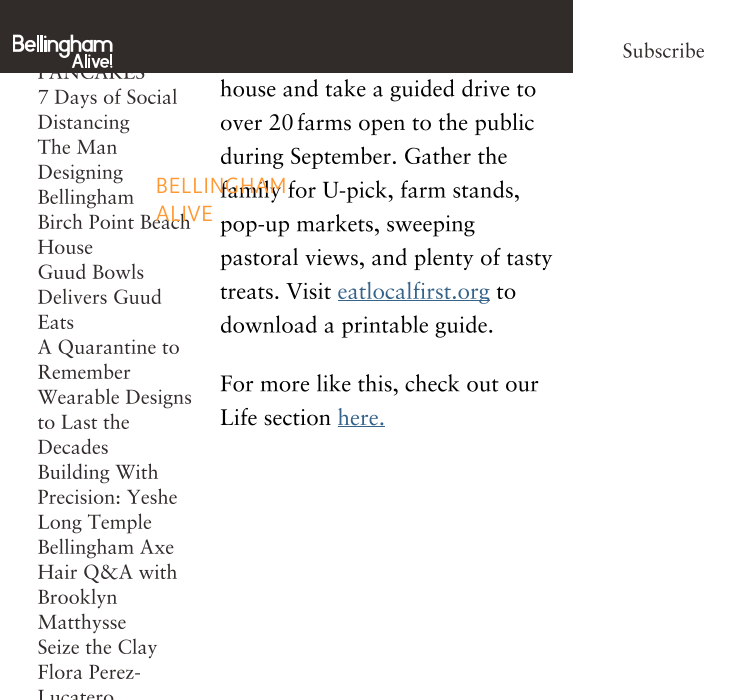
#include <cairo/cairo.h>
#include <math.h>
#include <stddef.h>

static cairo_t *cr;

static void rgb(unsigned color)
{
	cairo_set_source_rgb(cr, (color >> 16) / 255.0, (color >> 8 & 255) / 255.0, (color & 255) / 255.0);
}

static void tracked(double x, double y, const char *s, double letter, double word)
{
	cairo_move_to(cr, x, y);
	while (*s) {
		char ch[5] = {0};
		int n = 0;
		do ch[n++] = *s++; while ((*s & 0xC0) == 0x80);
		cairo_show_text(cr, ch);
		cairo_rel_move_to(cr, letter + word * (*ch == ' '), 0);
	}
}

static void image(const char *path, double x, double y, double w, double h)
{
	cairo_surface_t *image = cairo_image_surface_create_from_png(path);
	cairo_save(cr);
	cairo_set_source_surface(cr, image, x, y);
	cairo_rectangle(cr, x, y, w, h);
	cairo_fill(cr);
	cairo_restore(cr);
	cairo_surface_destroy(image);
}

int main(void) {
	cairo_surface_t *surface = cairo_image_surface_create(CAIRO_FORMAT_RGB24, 755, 700);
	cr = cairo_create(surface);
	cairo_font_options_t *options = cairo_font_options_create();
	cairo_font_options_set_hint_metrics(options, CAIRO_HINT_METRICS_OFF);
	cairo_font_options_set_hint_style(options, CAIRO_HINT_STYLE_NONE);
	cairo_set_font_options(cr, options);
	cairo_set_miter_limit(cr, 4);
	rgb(0xffffff);
	cairo_paint(cr);
	image("img/1.png", 38, 73, 107, 7);
	image("img/2.png", 38, 88, 139, 21);
	image("img/3.png", 38, 114, 92, 20);
	image("img/4.png", 37, 138, 80, 16);
	image("img/5.png", 38, 164, 85, 20);
	image("img/6.png", 38, 188, 96, 21);
	image("img/7.png", 38, 213, 153, 17);
	image("img/8.png", 38, 239, 55, 16);
	image("img/9.png", 38, 263, 106, 17);
	image("img/10.png", 38, 288, 124, 17);
	image("img/11.png", 38, 314, 36, 15);
	image("img/12.png", 37, 339, 142, 20);
	image("img/13.png", 38, 363, 93, 17);
	image("img/14.png", 37, 388, 155, 21);
	image("img/15.png", 37, 413, 92, 17);
	image("img/16.png", 38, 438, 70, 17);
	image("img/17.png", 38, 463, 121, 21);
	image("img/18.png", 38, 488, 139, 17);
	image("img/19.png", 38, 513, 114, 21);
	image("img/20.png", 38, 538, 136, 21);
	image("img/21.png", 38, 563, 139, 21);
	image("img/22.png", 38, 588, 79, 21);
	image("img/23.png", 38, 613, 88, 21);
	image("img/24.png", 38, 638, 120, 21);
	image("img/25.png", 38, 663, 102, 17);
	image("img/26.png", 38, 689, 76, 11);
	image("img/27.png", 220, 79, 316, 23);
	image("img/28.png", 221, 112, 313, 24);
	image("img/29.png", 221, 146, 286, 23);
	image("img/30.png", 220, 180, 299, 23);
	image("img/31.png", 220, 214, 255, 23);
	image("img/32.png", 220, 247, 333, 24);
	image("img/33.png", 220, 286, 59, 14);
	image("img/34.png", 286, 282, 45, 18);
	rgb(0x35638a);
	cairo_rectangle(cr, 338, 300, 152, 1);
	cairo_fill(cr);
	image("img/35.png", 338, 281, 152, 23);
	image("img/36.png", 496, 286, 20, 14);
	image("img/37.png", 221, 315, 272, 23);
	image("img/38.png", 220, 374, 319, 22);
	image("img/39.png", 220, 407, 111, 19);
	image("img/40.png", 338, 407, 46, 19);
	cairo_rectangle(cr, 338, 426, 47, 1);
	cairo_fill(cr);
	rgb(0x312b29);
	cairo_rectangle(cr, 0, 0, 573, 73);
	cairo_fill(cr);
	image("img/41.png", 13, 34, 100, 34);
	image("img/42.png", 623, 42, 81, 16);
	cairo_select_font_face(cr, "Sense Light", CAIRO_FONT_SLANT_NORMAL, CAIRO_FONT_WEIGHT_NORMAL);
	cairo_set_font_size(cr, 22.5);
	rgb(0xff9933);
	tracked(156, 193, "BELLINGHAM", 1.25, 0);
	tracked(156, 221, "ALIVE", 1.25, 0);
	cairo_surface_write_to_png(surface, "page.png");
	cairo_font_options_destroy(options);
	cairo_destroy(cr);
	cairo_surface_destroy(surface);
	return 0;
}
